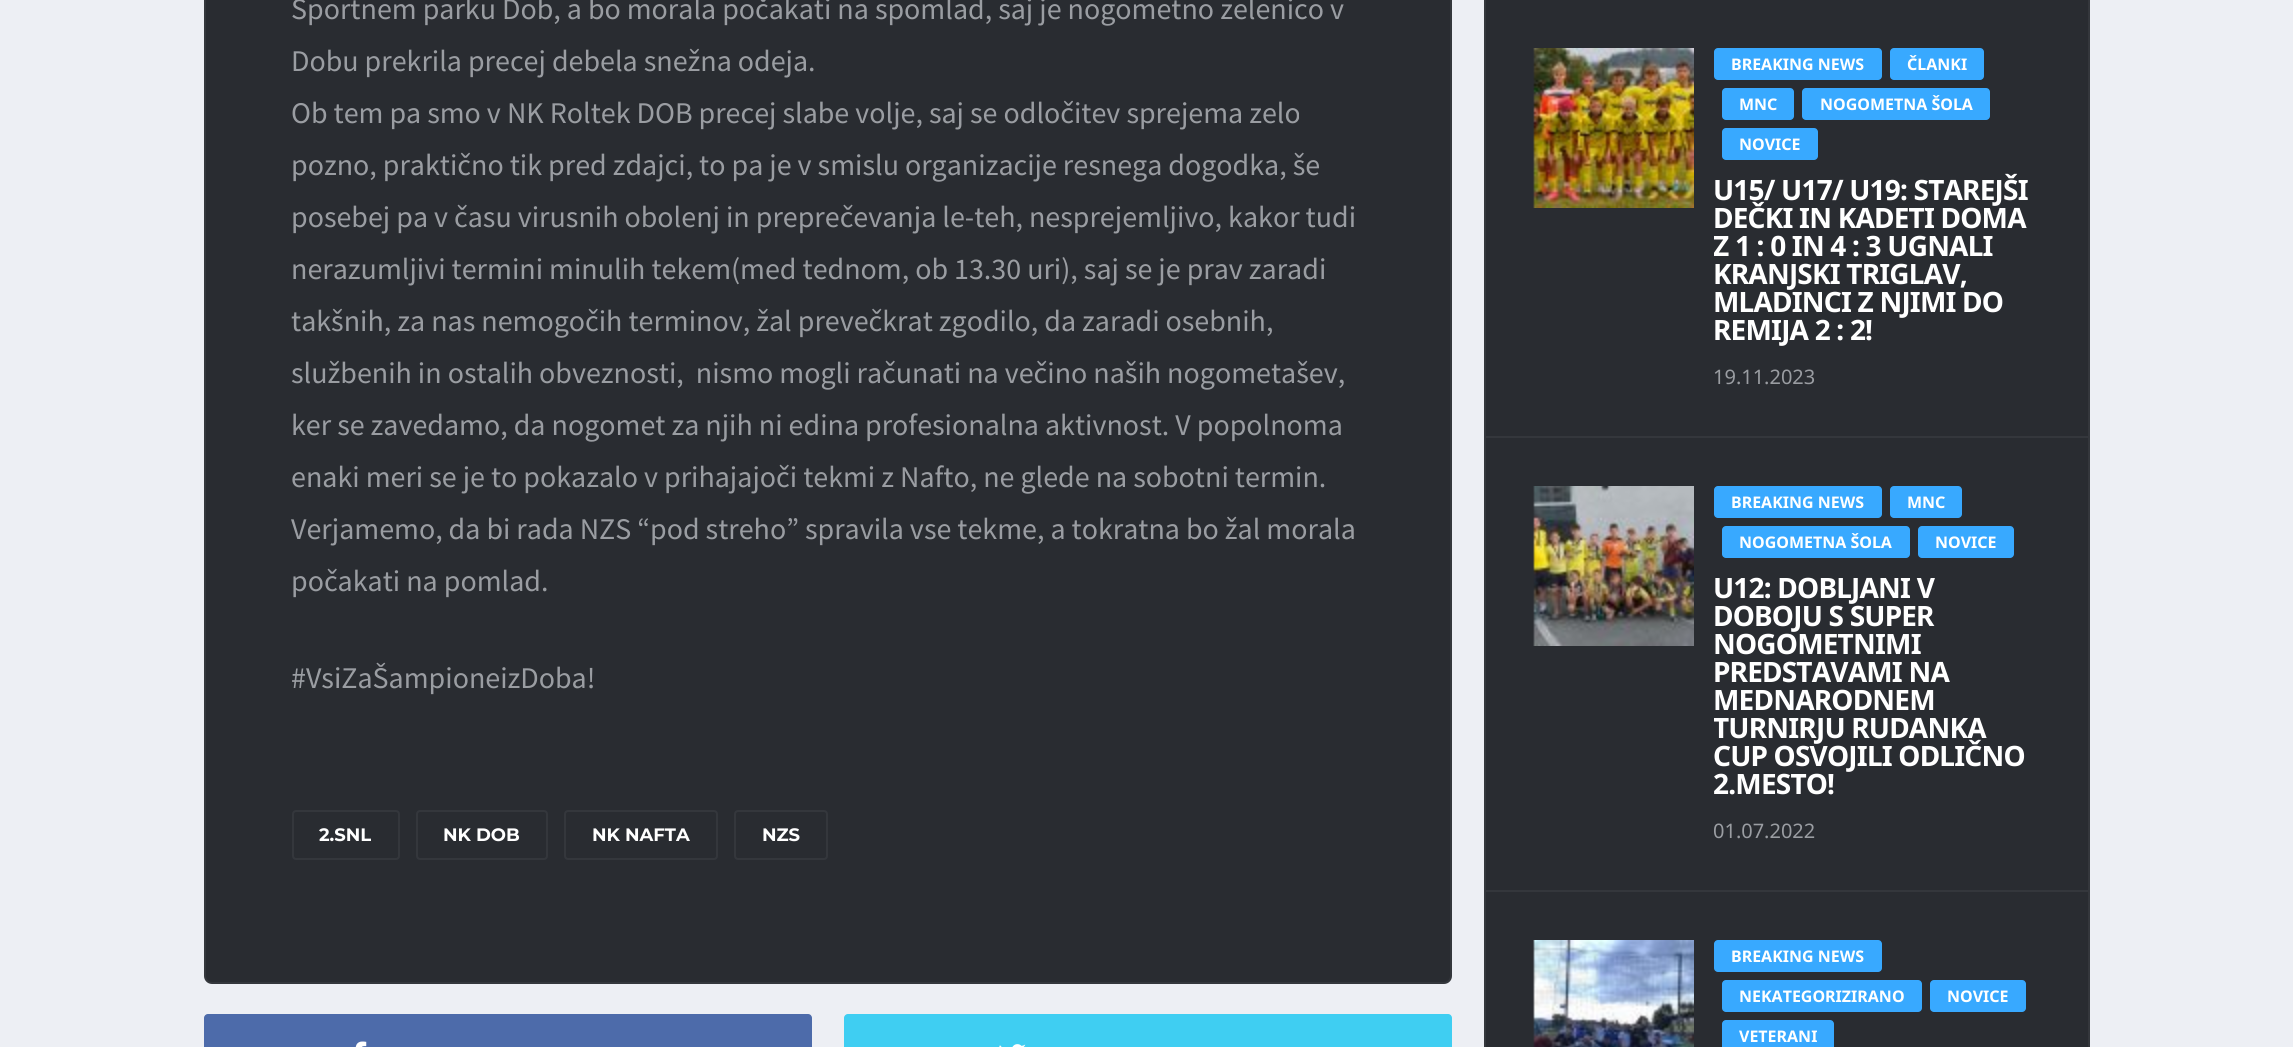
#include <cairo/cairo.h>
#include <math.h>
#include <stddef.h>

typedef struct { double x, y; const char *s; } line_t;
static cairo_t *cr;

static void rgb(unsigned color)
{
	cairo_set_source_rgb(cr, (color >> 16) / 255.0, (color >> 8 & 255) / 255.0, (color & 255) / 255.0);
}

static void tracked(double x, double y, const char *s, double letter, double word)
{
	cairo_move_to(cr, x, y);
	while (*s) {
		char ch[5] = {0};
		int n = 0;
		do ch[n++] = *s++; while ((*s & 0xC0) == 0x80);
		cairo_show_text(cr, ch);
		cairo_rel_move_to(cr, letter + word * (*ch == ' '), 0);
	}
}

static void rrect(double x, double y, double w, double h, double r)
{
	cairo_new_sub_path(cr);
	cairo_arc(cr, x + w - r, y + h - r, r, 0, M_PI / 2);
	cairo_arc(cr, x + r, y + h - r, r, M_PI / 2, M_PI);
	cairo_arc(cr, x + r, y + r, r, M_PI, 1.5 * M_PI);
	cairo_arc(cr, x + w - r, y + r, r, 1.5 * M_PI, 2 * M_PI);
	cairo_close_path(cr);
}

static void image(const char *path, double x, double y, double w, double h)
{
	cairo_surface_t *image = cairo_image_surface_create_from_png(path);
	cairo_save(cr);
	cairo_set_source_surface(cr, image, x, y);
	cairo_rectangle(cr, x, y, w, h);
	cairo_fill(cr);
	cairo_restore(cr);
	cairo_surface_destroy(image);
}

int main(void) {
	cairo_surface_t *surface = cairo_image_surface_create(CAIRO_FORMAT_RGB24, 2293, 1047);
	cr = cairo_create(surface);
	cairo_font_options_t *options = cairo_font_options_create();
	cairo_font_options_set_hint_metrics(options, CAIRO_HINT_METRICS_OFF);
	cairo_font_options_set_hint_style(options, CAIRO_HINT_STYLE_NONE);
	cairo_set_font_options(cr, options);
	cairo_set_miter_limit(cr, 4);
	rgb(0xedeff4);
	cairo_paint(cr);
	rgb(0x292c31);
	rrect(205, -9, 1246, 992, 7);
	cairo_fill_preserve(cr);
	rgb(0x34373c);
	cairo_stroke(cr);
	rrect(293, 811, 106, 48, 3);
	cairo_stroke(cr);
	rrect(417, 811, 130, 48, 3);
	cairo_stroke(cr);
	rrect(565, 811, 152, 48, 3);
	cairo_stroke(cr);
	rrect(735, 811, 92, 48, 3);
	cairo_stroke(cr);
	rgb(0x4d6baa);
	rrect(204, 1014, 608, 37, 4);
	cairo_fill(cr);
	image("img/1.png", 355, 1041, 12, 6);
	rgb(0x3fcef2);
	rrect(844, 1014, 608, 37, 4);
	cairo_fill(cr);
	image("img/2.png", 999, 1044, 27, 3);
	rgb(0x292c31);
	cairo_rectangle(cr, 1485, -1, 604, 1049);
	cairo_fill_preserve(cr);
	rgb(0x34373c);
	cairo_stroke(cr);
	cairo_rectangle(cr, 1486, 436, 602, 2);
	cairo_fill(cr);
	image("img/3.png", 1533, 48, 161, 160);
	rgb(0x38a9ff);
	rrect(1714, 48, 168, 32, 4);
	cairo_fill(cr);
	rrect(1890, 48, 94, 32, 4);
	cairo_fill(cr);
	rrect(1722, 88, 72, 32, 4);
	cairo_fill(cr);
	rrect(1802, 88, 188, 32, 4);
	cairo_fill(cr);
	rrect(1722, 128, 96, 32, 4);
	cairo_fill(cr);
	rgb(0x34373c);
	cairo_rectangle(cr, 1486, 890, 602, 2);
	cairo_fill(cr);
	image("img/4.png", 1533, 486, 161, 160);
	rgb(0x38a9ff);
	rrect(1714, 486, 168, 32, 4);
	cairo_fill(cr);
	rrect(1890, 486, 72, 32, 4);
	cairo_fill(cr);
	rrect(1722, 526, 188, 32, 4);
	cairo_fill(cr);
	rrect(1918, 526, 96, 32, 4);
	cairo_fill(cr);
	image("img/5.png", 1533, 940, 161, 107);
	rrect(1714, 940, 168, 32, 4);
	cairo_fill(cr);
	rrect(1722, 980, 200, 32, 4);
	cairo_fill(cr);
	rrect(1930, 980, 96, 32, 4);
	cairo_fill(cr);
	rrect(1722, 1020, 112, 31, 4);
	cairo_fill(cr);
	cairo_select_font_face(cr, "Source Sans Pro", CAIRO_FONT_SLANT_NORMAL, CAIRO_FONT_WEIGHT_NORMAL);
	cairo_set_font_size(cr, 30);
	rgb(0x9a9da2);
	{
		static const line_t items[] = {
			{291, 19, "Športnem parku Dob, a bo morala počakati na spomlad, saj je nogometno zelenico v"},
			{291, 71, "Dobu prekrila precej debela snežna odeja."},
			{291, 123, "Ob tem pa smo v NK Roltek DOB precej slabe volje, saj se odločitev sprejema zelo"},
			{291, 175, "pozno, praktično tik pred zdajci, to pa je v smislu organizacije resnega dogodka, še"},
			{291, 227, "posebej pa v času virusnih obolenj in preprečevanja le-teh, nesprejemljivo, kakor tudi"},
			{291, 279, "nerazumljivi termini minulih tekem(med tednom, ob 13.30 uri), saj se je prav zaradi"},
			{291, 331, "takšnih, za nas nemogočih terminov, žal prevečkrat zgodilo, da zaradi osebnih,"},
			{291, 383, "službenih in ostalih obveznosti,  nismo mogli računati na večino naših nogometašev,"},
			{291, 435, "ker se zavedamo, da nogomet za njih ni edina profesionalna aktivnost. V popolnoma"},
			{291, 487, "enaki meri se je to pokazalo v prihajajoči tekmi z Nafto, ne glede na sobotni termin."},
			{291, 539, "Verjamemo, da bi rada NZS “pod streho” spravila vse tekme, a tokratna bo žal morala"},
			{291, 591, "počakati na pomlad."},
			{291, 688, "#VsiZaŠampioneizDoba!"},
		};
		for (size_t i = 0; i < sizeof items / sizeof *items; i++) {
			cairo_move_to(cr, items[i].x, items[i].y);
			cairo_show_text(cr, items[i].s);
		}
	}
	cairo_select_font_face(cr, "Montserrat", CAIRO_FONT_SLANT_NORMAL, CAIRO_FONT_WEIGHT_BOLD);
	cairo_set_font_size(cr, 18);
	rgb(0xffffff);
	{
		static const line_t items[] = {
			{319, 841, "2.SNL"},
			{443, 841, "NK DOB"},
			{592, 841, "NK NAFTA"},
			{762, 841, "NZS"},
		};
		for (size_t i = 0; i < sizeof items / sizeof *items; i++) {
			cairo_move_to(cr, items[i].x, items[i].y);
			cairo_show_text(cr, items[i].s);
		}
	}
	cairo_select_font_face(cr, "Noto Sans", CAIRO_FONT_SLANT_NORMAL, CAIRO_FONT_WEIGHT_BOLD);
	cairo_set_font_size(cr, 16);
	{
		static const line_t items[] = {
			{1731, 70, "BREAKING NEWS"},
			{1907, 70, "ČLANKI"},
			{1739, 110, "MNC"},
			{1820, 110, "NOGOMETNA ŠOLA"},
			{1739, 150, "NOVICE"},
		};
		for (size_t i = 0; i < sizeof items / sizeof *items; i++) {
			cairo_move_to(cr, items[i].x, items[i].y);
			cairo_show_text(cr, items[i].s);
		}
	}
	cairo_set_font_size(cr, 28);
	tracked(1713, 200, "U15/ U17/ U19: STAREJŠI", -0.8, 0);
	tracked(1713, 228, "DEČKI IN KADETI DOMA", -0.8, 0);
	cairo_save(cr);
	cairo_rectangle(cr, 1714, 48, 326, 340);
	cairo_clip(cr);
	tracked(1713, 256, "Z 1 : 0 IN 4 : 3 UGNALI", -0.8, 0);
	cairo_restore(cr);
	{
		static const line_t items[] = {
			{1713, 284, "KRANJSKI TRIGLAV,"},
			{1713, 312, "MLADINCI Z NJIMI DO"},
			{1713, 340, "REMIJA 2 : 2!"},
		};
		for (size_t i = 0; i < sizeof items / sizeof *items; i++) {
			tracked(items[i].x, items[i].y, items[i].s, -0.8, 0);
		}
	}
	cairo_select_font_face(cr, "Noto Sans", CAIRO_FONT_SLANT_NORMAL, CAIRO_FONT_WEIGHT_NORMAL);
	cairo_set_font_size(cr, 20);
	rgb(0x9a9da2);
	cairo_move_to(cr, 1713, 384);
	cairo_show_text(cr, "19.11.2023");
	cairo_select_font_face(cr, "Noto Sans", CAIRO_FONT_SLANT_NORMAL, CAIRO_FONT_WEIGHT_BOLD);
	cairo_set_font_size(cr, 16);
	rgb(0xffffff);
	{
		static const line_t items[] = {
			{1731, 508, "BREAKING NEWS"},
			{1907, 508, "MNC"},
			{1739, 548, "NOGOMETNA ŠOLA"},
			{1935, 548, "NOVICE"},
		};
		for (size_t i = 0; i < sizeof items / sizeof *items; i++) {
			cairo_move_to(cr, items[i].x, items[i].y);
			cairo_show_text(cr, items[i].s);
		}
	}
	cairo_set_font_size(cr, 28);
	{
		static const line_t items[] = {
			{1713, 598, "U12: DOBLJANI V"},
			{1713, 626, "DOBOJU S SUPER"},
			{1713, 654, "NOGOMETNIMI"},
			{1713, 682, "PREDSTAVAMI NA"},
			{1713, 710, "MEDNARODNEM"},
		};
		for (size_t i = 0; i < sizeof items / sizeof *items; i++) {
			tracked(items[i].x, items[i].y, items[i].s, -0.8, 0);
		}
	}
	cairo_save(cr);
	cairo_rectangle(cr, 1714, 486, 326, 356);
	cairo_clip(cr);
	tracked(1713, 738, "TURNIRJU RUDANKA", -0.8, 0);
	cairo_restore(cr);
	tracked(1713, 766, "CUP OSVOJILI ODLIČNO", -0.8, 0);
	tracked(1713, 794, "2.MESTO!", -0.8, 0);
	cairo_select_font_face(cr, "Noto Sans", CAIRO_FONT_SLANT_NORMAL, CAIRO_FONT_WEIGHT_NORMAL);
	cairo_set_font_size(cr, 20);
	rgb(0x9a9da2);
	cairo_move_to(cr, 1713, 838);
	cairo_show_text(cr, "01.07.2022");
	cairo_select_font_face(cr, "Noto Sans", CAIRO_FONT_SLANT_NORMAL, CAIRO_FONT_WEIGHT_BOLD);
	cairo_set_font_size(cr, 16);
	rgb(0xffffff);
	{
		static const line_t items[] = {
			{1731, 962, "BREAKING NEWS"},
			{1739, 1002, "NEKATEGORIZIRANO"},
			{1947, 1002, "NOVICE"},
			{1739, 1042, "VETERANI"},
		};
		for (size_t i = 0; i < sizeof items / sizeof *items; i++) {
			cairo_move_to(cr, items[i].x, items[i].y);
			cairo_show_text(cr, items[i].s);
		}
	}
	cairo_surface_write_to_png(surface, "page.png");
	cairo_font_options_destroy(options);
	cairo_destroy(cr);
	cairo_surface_destroy(surface);
	return 0;
}
